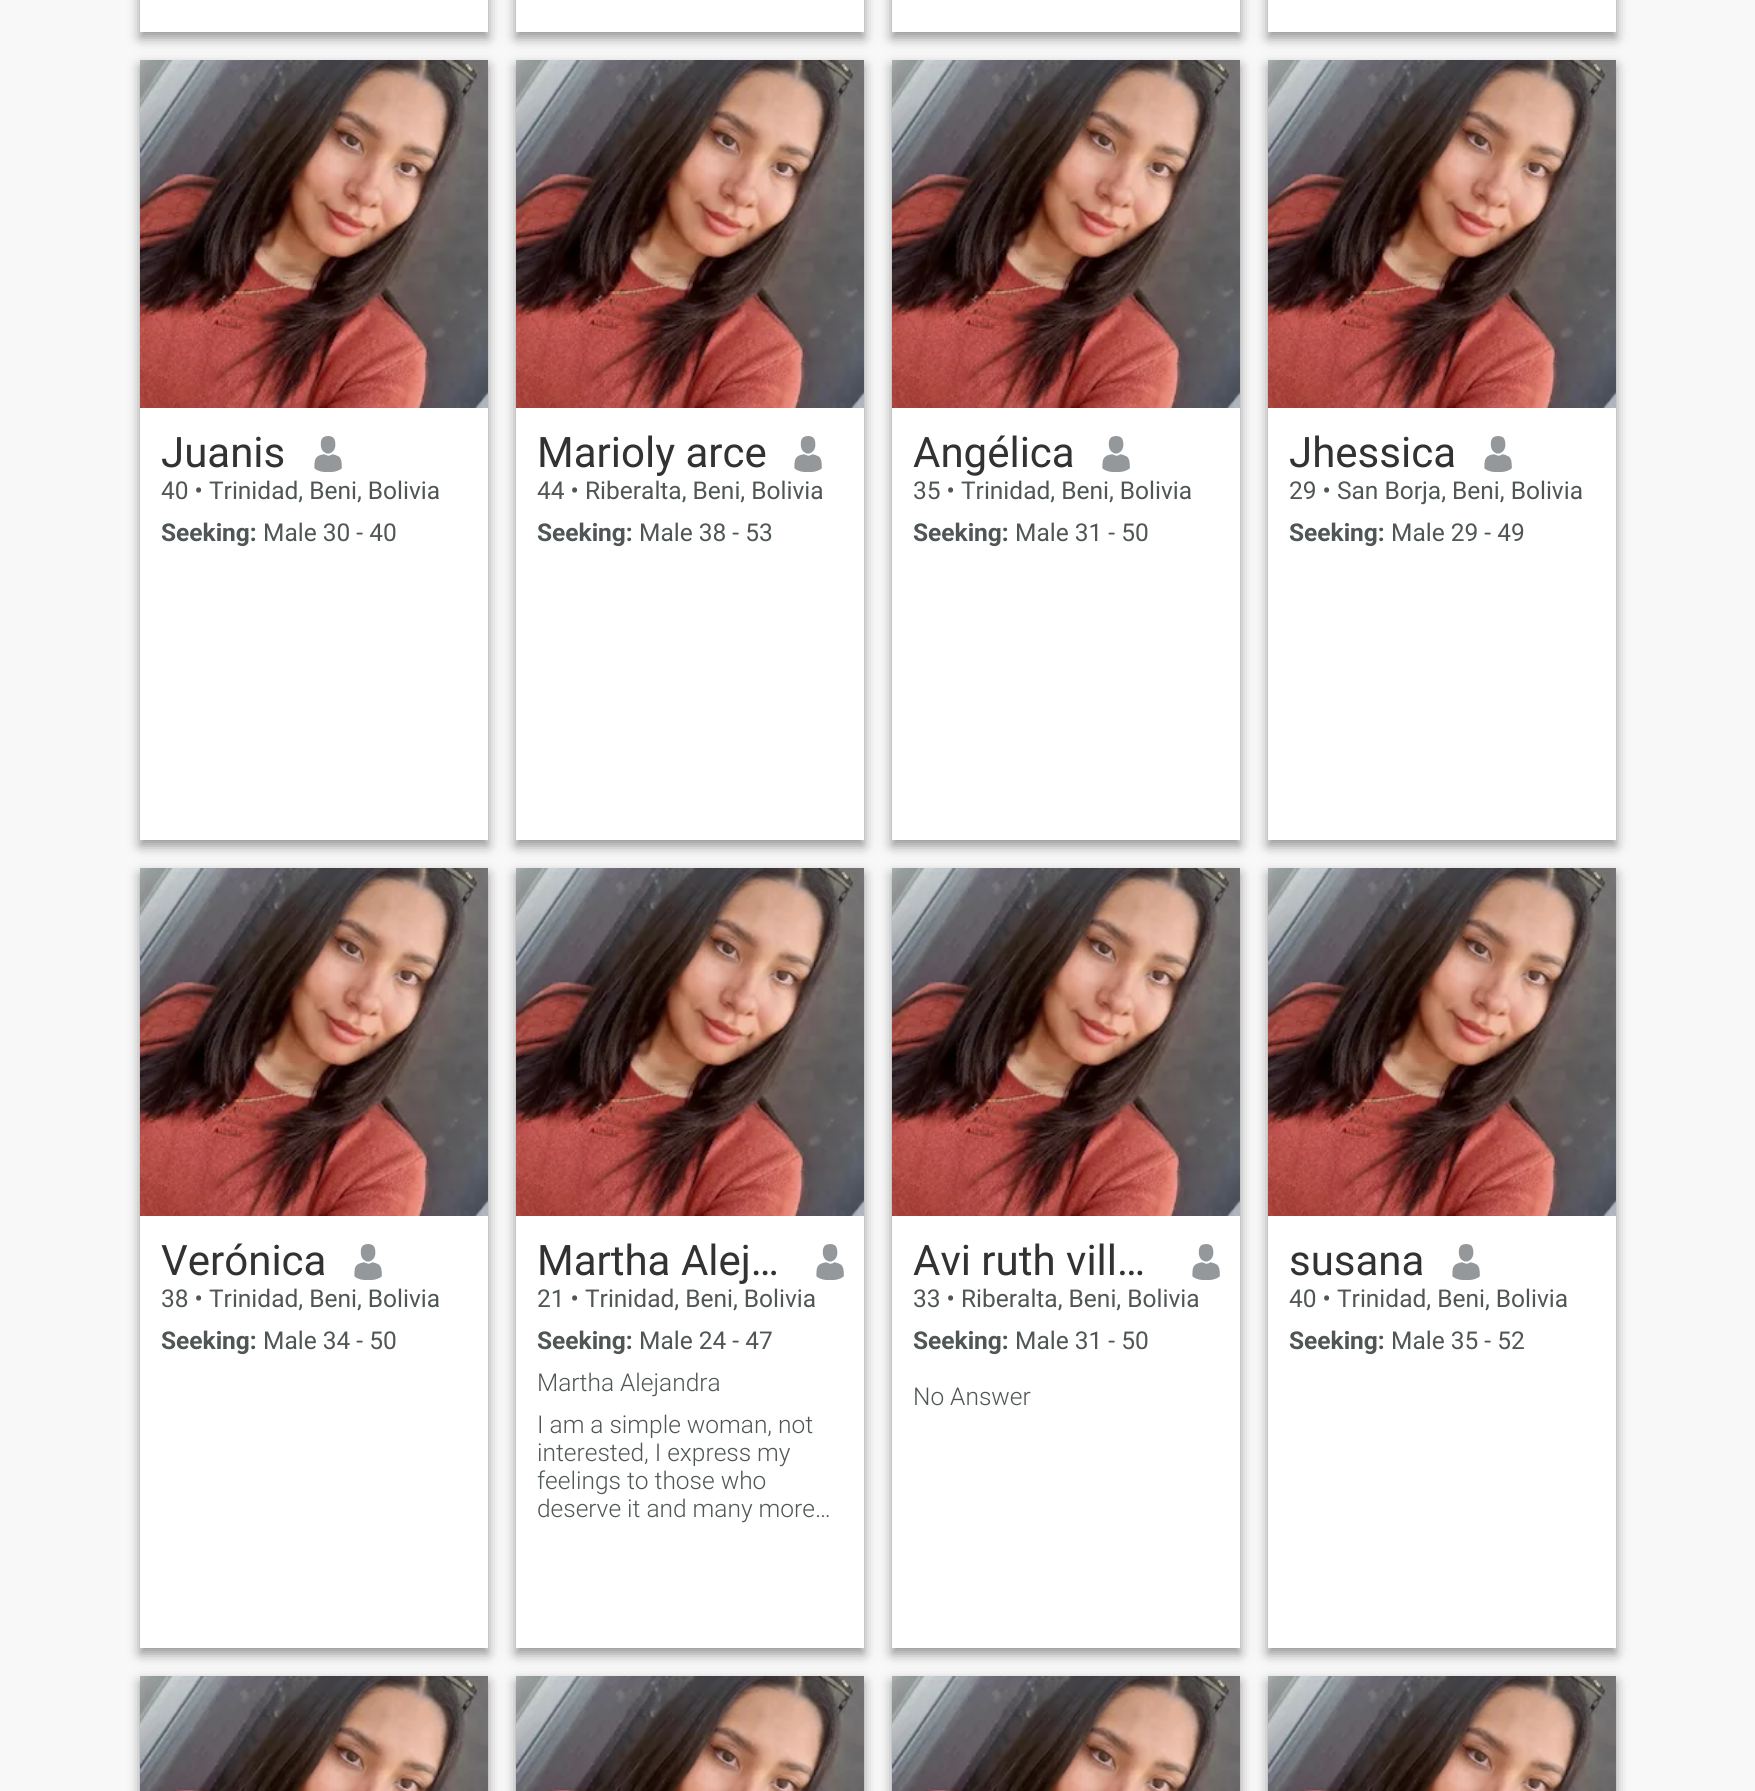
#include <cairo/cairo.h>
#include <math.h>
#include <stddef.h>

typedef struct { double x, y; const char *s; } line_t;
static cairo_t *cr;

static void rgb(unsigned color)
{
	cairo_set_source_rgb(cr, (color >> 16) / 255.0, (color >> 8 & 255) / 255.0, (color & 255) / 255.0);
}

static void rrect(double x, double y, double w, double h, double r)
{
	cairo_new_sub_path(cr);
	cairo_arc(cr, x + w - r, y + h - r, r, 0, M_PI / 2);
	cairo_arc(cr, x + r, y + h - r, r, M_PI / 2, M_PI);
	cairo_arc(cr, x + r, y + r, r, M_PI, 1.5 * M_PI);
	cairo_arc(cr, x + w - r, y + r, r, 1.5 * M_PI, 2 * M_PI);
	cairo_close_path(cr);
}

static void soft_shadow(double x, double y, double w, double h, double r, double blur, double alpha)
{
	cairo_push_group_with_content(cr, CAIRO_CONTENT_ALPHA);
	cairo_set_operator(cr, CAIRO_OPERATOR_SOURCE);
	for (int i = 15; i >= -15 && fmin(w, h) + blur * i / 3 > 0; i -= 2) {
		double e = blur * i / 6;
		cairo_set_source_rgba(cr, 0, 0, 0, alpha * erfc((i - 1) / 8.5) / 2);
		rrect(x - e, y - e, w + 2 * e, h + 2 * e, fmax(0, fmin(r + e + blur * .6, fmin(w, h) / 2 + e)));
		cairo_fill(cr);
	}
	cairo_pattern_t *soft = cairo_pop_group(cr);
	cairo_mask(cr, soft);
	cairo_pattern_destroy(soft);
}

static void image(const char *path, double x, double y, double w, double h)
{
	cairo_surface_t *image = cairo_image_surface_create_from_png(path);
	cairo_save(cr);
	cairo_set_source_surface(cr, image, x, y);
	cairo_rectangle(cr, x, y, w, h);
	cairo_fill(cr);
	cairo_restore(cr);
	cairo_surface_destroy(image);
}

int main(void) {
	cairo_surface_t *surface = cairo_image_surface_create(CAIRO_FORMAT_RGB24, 1755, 1791);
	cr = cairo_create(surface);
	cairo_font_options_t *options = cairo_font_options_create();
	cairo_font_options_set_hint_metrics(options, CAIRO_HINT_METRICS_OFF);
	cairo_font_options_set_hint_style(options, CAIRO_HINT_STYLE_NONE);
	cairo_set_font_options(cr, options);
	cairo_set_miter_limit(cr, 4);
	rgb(0xf8f8f8);
	cairo_paint(cr);
	rgb(0x000000);
	soft_shadow(140, -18, 348, 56, 0, 6, 0.4);
	rgb(0xffffff);
	cairo_rectangle(cr, 140, 0, 348, 32);
	cairo_fill(cr);
	rgb(0x000000);
	soft_shadow(516, -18, 348, 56, 0, 6, 0.4);
	rgb(0xffffff);
	cairo_rectangle(cr, 516, 0, 348, 32);
	cairo_fill(cr);
	rgb(0x000000);
	soft_shadow(892, -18, 348, 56, 0, 6, 0.4);
	rgb(0xffffff);
	cairo_rectangle(cr, 892, 0, 348, 32);
	cairo_fill(cr);
	rgb(0x000000);
	soft_shadow(1268, -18, 348, 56, 0, 6, 0.4);
	rgb(0xffffff);
	cairo_rectangle(cr, 1268, 0, 348, 32);
	cairo_fill(cr);
	rgb(0x000000);
	soft_shadow(140, 66, 348, 780, 0, 6, 0.4);
	rgb(0xffffff);
	cairo_rectangle(cr, 140, 408, 348, 432);
	cairo_fill(cr);
	image("img/1.png", 140, 60, 348, 348);
	image("img/2.png", 314, 436, 28, 36);
	rgb(0x000000);
	soft_shadow(516, 66, 348, 780, 0, 6, 0.4);
	rgb(0xffffff);
	cairo_rectangle(cr, 516, 408, 348, 432);
	cairo_fill(cr);
	image("img/3.png", 516, 60, 348, 348);
	image("img/2.png", 794, 436, 28, 36);
	rgb(0x000000);
	soft_shadow(892, 66, 348, 780, 0, 6, 0.4);
	rgb(0xffffff);
	cairo_rectangle(cr, 892, 408, 348, 432);
	cairo_fill(cr);
	image("img/4.png", 892, 60, 348, 348);
	image("img/2.png", 1102, 436, 28, 36);
	rgb(0x000000);
	soft_shadow(1268, 66, 348, 780, 0, 6, 0.4);
	rgb(0xffffff);
	cairo_rectangle(cr, 1268, 408, 348, 432);
	cairo_fill(cr);
	image("img/5.png", 1268, 60, 348, 348);
	image("img/2.png", 1484, 436, 28, 36);
	rgb(0x000000);
	soft_shadow(140, 874, 348, 780, 0, 6, 0.4);
	rgb(0xffffff);
	cairo_rectangle(cr, 140, 1216, 348, 432);
	cairo_fill(cr);
	image("img/6.png", 140, 868, 348, 348);
	image("img/7.png", 354, 1244, 28, 36);
	rgb(0x000000);
	soft_shadow(516, 874, 348, 780, 0, 6, 0.4);
	rgb(0xffffff);
	cairo_rectangle(cr, 516, 1216, 348, 432);
	cairo_fill(cr);
	image("img/8.png", 516, 868, 348, 348);
	image("img/7.png", 816, 1244, 28, 36);
	rgb(0x000000);
	soft_shadow(892, 874, 348, 780, 0, 6, 0.4);
	rgb(0xffffff);
	cairo_rectangle(cr, 892, 1216, 348, 432);
	cairo_fill(cr);
	image("img/9.png", 892, 868, 348, 348);
	image("img/7.png", 1192, 1244, 28, 36);
	rgb(0x000000);
	soft_shadow(1268, 874, 348, 780, 0, 6, 0.4);
	rgb(0xffffff);
	cairo_rectangle(cr, 1268, 1216, 348, 432);
	cairo_fill(cr);
	image("img/10.png", 1268, 868, 348, 348);
	image("img/7.png", 1452, 1244, 28, 36);
	rgb(0x000000);
	soft_shadow(140, 1682, 348, 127, 0, 6, 0.4);
	image("img/11.png", 140, 1676, 348, 115);
	soft_shadow(516, 1682, 348, 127, 0, 6, 0.4);
	image("img/12.png", 516, 1676, 348, 115);
	soft_shadow(892, 1682, 348, 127, 0, 6, 0.4);
	image("img/13.png", 892, 1676, 348, 115);
	soft_shadow(1268, 1682, 348, 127, 0, 6, 0.4);
	image("img/14.png", 1268, 1676, 348, 115);
	cairo_select_font_face(cr, "Roboto", CAIRO_FONT_SLANT_NORMAL, CAIRO_FONT_WEIGHT_NORMAL);
	cairo_set_font_size(cr, 42);
	rgb(0x323232);
	cairo_move_to(cr, 161, 467);
	cairo_show_text(cr, "Juanis");
	cairo_set_font_size(cr, 24.5);
	rgb(0x505656);
	cairo_move_to(cr, 161, 499);
	cairo_show_text(cr, "40 • Trinidad, Beni, Bolivia");
	cairo_select_font_face(cr, "Roboto", CAIRO_FONT_SLANT_NORMAL, CAIRO_FONT_WEIGHT_BOLD);
	cairo_move_to(cr, 161, 541);
	cairo_show_text(cr, "Seeking:");
	cairo_select_font_face(cr, "Roboto", CAIRO_FONT_SLANT_NORMAL, CAIRO_FONT_WEIGHT_NORMAL);
	cairo_move_to(cr, 263, 541);
	cairo_show_text(cr, "Male 30 - 40");
	cairo_set_font_size(cr, 42);
	rgb(0x323232);
	cairo_move_to(cr, 537, 467);
	cairo_show_text(cr, "Marioly arce");
	cairo_set_font_size(cr, 24.5);
	rgb(0x505656);
	cairo_move_to(cr, 537, 499);
	cairo_show_text(cr, "44 • Riberalta, Beni, Bolivia");
	cairo_select_font_face(cr, "Roboto", CAIRO_FONT_SLANT_NORMAL, CAIRO_FONT_WEIGHT_BOLD);
	cairo_move_to(cr, 537, 541);
	cairo_show_text(cr, "Seeking:");
	cairo_select_font_face(cr, "Roboto", CAIRO_FONT_SLANT_NORMAL, CAIRO_FONT_WEIGHT_NORMAL);
	cairo_move_to(cr, 639, 541);
	cairo_show_text(cr, "Male 38 - 53");
	cairo_set_font_size(cr, 42);
	rgb(0x323232);
	cairo_move_to(cr, 913, 467);
	cairo_show_text(cr, "Angélica");
	cairo_set_font_size(cr, 24.5);
	rgb(0x505656);
	cairo_move_to(cr, 913, 499);
	cairo_show_text(cr, "35 • Trinidad, Beni, Bolivia");
	cairo_select_font_face(cr, "Roboto", CAIRO_FONT_SLANT_NORMAL, CAIRO_FONT_WEIGHT_BOLD);
	cairo_move_to(cr, 913, 541);
	cairo_show_text(cr, "Seeking:");
	cairo_select_font_face(cr, "Roboto", CAIRO_FONT_SLANT_NORMAL, CAIRO_FONT_WEIGHT_NORMAL);
	cairo_move_to(cr, 1015, 541);
	cairo_show_text(cr, "Male 31 - 50");
	cairo_set_font_size(cr, 42);
	rgb(0x323232);
	cairo_move_to(cr, 1289, 467);
	cairo_show_text(cr, "Jhessica");
	cairo_set_font_size(cr, 24.5);
	rgb(0x505656);
	cairo_move_to(cr, 1289, 499);
	cairo_show_text(cr, "29 • San Borja, Beni, Bolivia");
	cairo_select_font_face(cr, "Roboto", CAIRO_FONT_SLANT_NORMAL, CAIRO_FONT_WEIGHT_BOLD);
	cairo_move_to(cr, 1289, 541);
	cairo_show_text(cr, "Seeking:");
	cairo_select_font_face(cr, "Roboto", CAIRO_FONT_SLANT_NORMAL, CAIRO_FONT_WEIGHT_NORMAL);
	cairo_move_to(cr, 1391, 541);
	cairo_show_text(cr, "Male 29 - 49");
	cairo_set_font_size(cr, 42);
	rgb(0x323232);
	cairo_move_to(cr, 161, 1275);
	cairo_show_text(cr, "Verónica");
	cairo_set_font_size(cr, 24.5);
	rgb(0x505656);
	cairo_move_to(cr, 161, 1307);
	cairo_show_text(cr, "38 • Trinidad, Beni, Bolivia");
	cairo_select_font_face(cr, "Roboto", CAIRO_FONT_SLANT_NORMAL, CAIRO_FONT_WEIGHT_BOLD);
	cairo_move_to(cr, 161, 1349);
	cairo_show_text(cr, "Seeking:");
	cairo_select_font_face(cr, "Roboto", CAIRO_FONT_SLANT_NORMAL, CAIRO_FONT_WEIGHT_NORMAL);
	cairo_move_to(cr, 263, 1349);
	cairo_show_text(cr, "Male 34 - 50");
	cairo_set_font_size(cr, 42);
	rgb(0x323232);
	cairo_move_to(cr, 537, 1275);
	cairo_show_text(cr, "Martha Alej…");
	cairo_set_font_size(cr, 24.5);
	rgb(0x505656);
	cairo_move_to(cr, 537, 1307);
	cairo_show_text(cr, "21 • Trinidad, Beni, Bolivia");
	cairo_select_font_face(cr, "Roboto", CAIRO_FONT_SLANT_NORMAL, CAIRO_FONT_WEIGHT_BOLD);
	cairo_move_to(cr, 537, 1349);
	cairo_show_text(cr, "Seeking:");
	cairo_select_font_face(cr, "Roboto", CAIRO_FONT_SLANT_NORMAL, CAIRO_FONT_WEIGHT_NORMAL);
	cairo_move_to(cr, 639, 1349);
	cairo_show_text(cr, "Male 24 - 47");
	cairo_select_font_face(cr, "Roboto Light", CAIRO_FONT_SLANT_NORMAL, CAIRO_FONT_WEIGHT_NORMAL);
	{
		static const line_t items[] = {
			{537, 1391, "Martha Alejandra"},
			{537, 1433, "I am a simple woman, not"},
			{537, 1461, "interested, I express my"},
			{537, 1489, "feelings to those who"},
			{537, 1517, "deserve it and many more…"},
		};
		for (size_t i = 0; i < sizeof items / sizeof *items; i++) {
			cairo_move_to(cr, items[i].x, items[i].y);
			cairo_show_text(cr, items[i].s);
		}
	}
	cairo_select_font_face(cr, "Roboto", CAIRO_FONT_SLANT_NORMAL, CAIRO_FONT_WEIGHT_NORMAL);
	cairo_set_font_size(cr, 42);
	rgb(0x323232);
	cairo_move_to(cr, 913, 1275);
	cairo_show_text(cr, "Avi ruth vill…");
	cairo_set_font_size(cr, 24.5);
	rgb(0x505656);
	cairo_move_to(cr, 913, 1307);
	cairo_show_text(cr, "33 • Riberalta, Beni, Bolivia");
	cairo_select_font_face(cr, "Roboto", CAIRO_FONT_SLANT_NORMAL, CAIRO_FONT_WEIGHT_BOLD);
	cairo_move_to(cr, 913, 1349);
	cairo_show_text(cr, "Seeking:");
	cairo_select_font_face(cr, "Roboto", CAIRO_FONT_SLANT_NORMAL, CAIRO_FONT_WEIGHT_NORMAL);
	cairo_move_to(cr, 1015, 1349);
	cairo_show_text(cr, "Male 31 - 50");
	cairo_select_font_face(cr, "Roboto Light", CAIRO_FONT_SLANT_NORMAL, CAIRO_FONT_WEIGHT_NORMAL);
	cairo_move_to(cr, 913, 1405);
	cairo_show_text(cr, "No Answer");
	cairo_select_font_face(cr, "Roboto", CAIRO_FONT_SLANT_NORMAL, CAIRO_FONT_WEIGHT_NORMAL);
	cairo_set_font_size(cr, 42);
	rgb(0x323232);
	cairo_move_to(cr, 1289, 1275);
	cairo_show_text(cr, "susana");
	cairo_set_font_size(cr, 24.5);
	rgb(0x505656);
	cairo_move_to(cr, 1289, 1307);
	cairo_show_text(cr, "40 • Trinidad, Beni, Bolivia");
	cairo_select_font_face(cr, "Roboto", CAIRO_FONT_SLANT_NORMAL, CAIRO_FONT_WEIGHT_BOLD);
	cairo_move_to(cr, 1289, 1349);
	cairo_show_text(cr, "Seeking:");
	cairo_select_font_face(cr, "Roboto", CAIRO_FONT_SLANT_NORMAL, CAIRO_FONT_WEIGHT_NORMAL);
	cairo_move_to(cr, 1391, 1349);
	cairo_show_text(cr, "Male 35 - 52");
	cairo_surface_write_to_png(surface, "page.png");
	cairo_font_options_destroy(options);
	cairo_destroy(cr);
	cairo_surface_destroy(surface);
	return 0;
}
